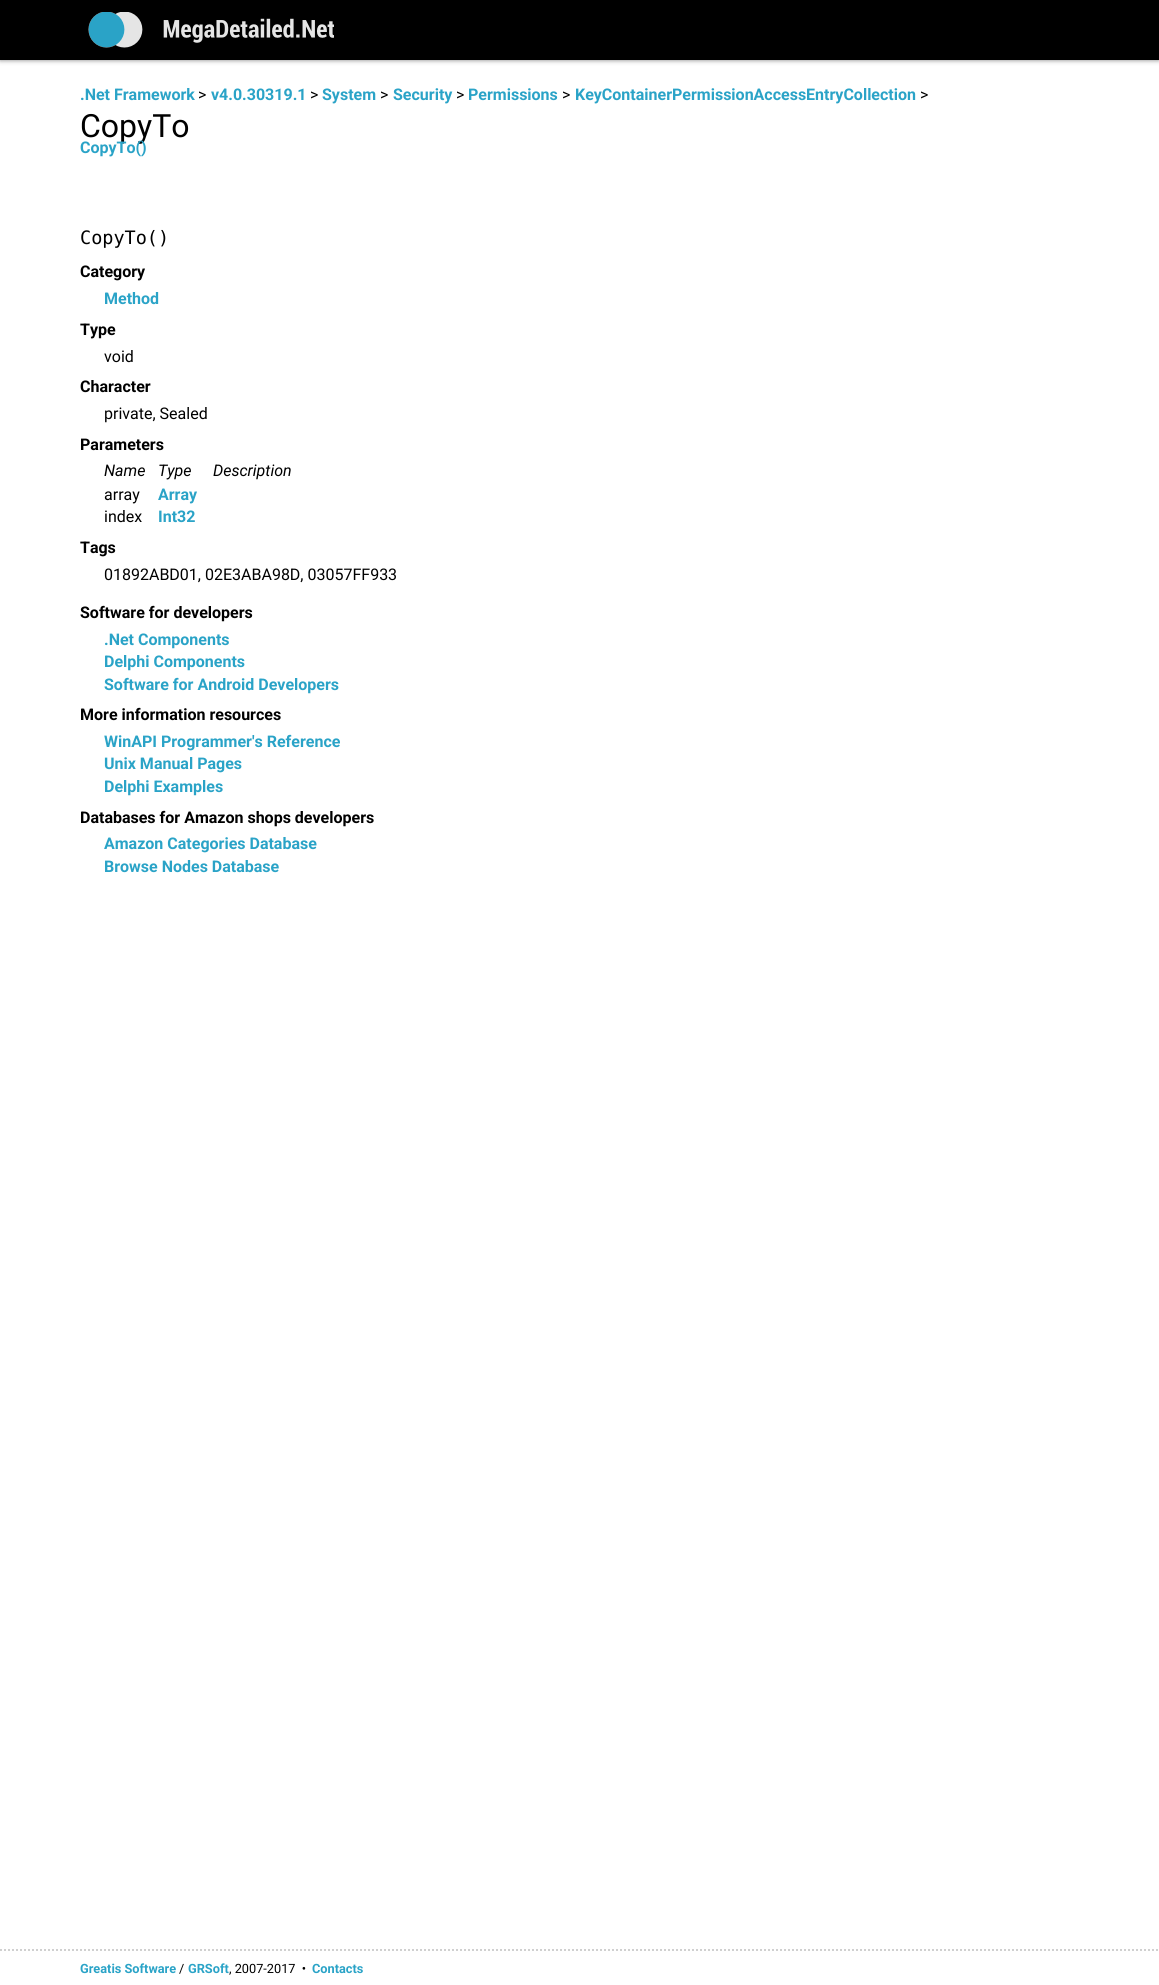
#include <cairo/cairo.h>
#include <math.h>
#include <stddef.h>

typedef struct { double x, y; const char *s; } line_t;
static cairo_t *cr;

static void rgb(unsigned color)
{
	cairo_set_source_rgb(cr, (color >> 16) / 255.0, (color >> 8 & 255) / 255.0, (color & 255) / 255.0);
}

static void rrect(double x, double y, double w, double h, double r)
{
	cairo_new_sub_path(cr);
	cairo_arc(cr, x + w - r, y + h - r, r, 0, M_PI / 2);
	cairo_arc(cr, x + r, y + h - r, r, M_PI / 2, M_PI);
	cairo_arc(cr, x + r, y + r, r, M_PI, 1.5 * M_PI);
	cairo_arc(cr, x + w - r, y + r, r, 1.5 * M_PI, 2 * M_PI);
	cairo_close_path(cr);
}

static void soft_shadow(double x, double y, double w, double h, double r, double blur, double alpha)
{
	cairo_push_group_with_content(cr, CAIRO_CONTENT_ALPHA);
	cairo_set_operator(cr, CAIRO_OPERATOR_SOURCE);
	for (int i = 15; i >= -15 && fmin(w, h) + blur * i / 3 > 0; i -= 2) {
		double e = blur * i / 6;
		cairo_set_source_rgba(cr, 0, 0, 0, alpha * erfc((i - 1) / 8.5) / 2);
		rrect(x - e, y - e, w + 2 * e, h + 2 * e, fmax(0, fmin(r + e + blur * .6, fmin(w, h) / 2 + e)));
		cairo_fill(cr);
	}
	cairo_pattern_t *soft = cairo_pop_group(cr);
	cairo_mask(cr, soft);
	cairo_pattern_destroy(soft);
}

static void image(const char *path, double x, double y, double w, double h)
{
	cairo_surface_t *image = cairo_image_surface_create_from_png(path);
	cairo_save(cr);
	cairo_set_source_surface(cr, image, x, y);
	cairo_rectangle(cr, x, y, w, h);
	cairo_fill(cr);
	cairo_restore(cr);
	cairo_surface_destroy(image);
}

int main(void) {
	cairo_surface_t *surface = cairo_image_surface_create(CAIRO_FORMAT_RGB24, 1159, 1985);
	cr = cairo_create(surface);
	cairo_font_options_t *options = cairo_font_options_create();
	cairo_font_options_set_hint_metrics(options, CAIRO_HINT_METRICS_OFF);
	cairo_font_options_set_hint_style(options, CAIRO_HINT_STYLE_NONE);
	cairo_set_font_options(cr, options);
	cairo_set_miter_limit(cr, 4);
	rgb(0xffffff);
	cairo_paint(cr);
	rgb(0x000000);
	soft_shadow(0, 0, 1159, 60, 0, 2.5, 0.5);
	rgb(0x000000);
	cairo_rectangle(cr, 0, 0, 1159, 60);
	cairo_fill(cr);
	image("img/1.png", 88, 12, 246, 36);
	cairo_new_path(cr);
	cairo_move_to(cr, 0, 1950);
	cairo_line_to(cr, 1159, 1950);
	rgb(0xd0d0d0);
	cairo_set_dash(cr, (double[]){2, 2}, 2, 0);
	cairo_stroke(cr);
	cairo_select_font_face(cr, "Roboto", CAIRO_FONT_SLANT_NORMAL, CAIRO_FONT_WEIGHT_BOLD);
	cairo_set_font_size(cr, 16);
	rgb(0x2aa3c7);
	cairo_move_to(cr, 80, 100);
	cairo_show_text(cr, ".Net Framework");
	cairo_select_font_face(cr, "Roboto", CAIRO_FONT_SLANT_NORMAL, CAIRO_FONT_WEIGHT_NORMAL);
	rgb(0x000000);
	cairo_move_to(cr, 198, 100);
	cairo_show_text(cr, ">");
	cairo_select_font_face(cr, "Roboto", CAIRO_FONT_SLANT_NORMAL, CAIRO_FONT_WEIGHT_BOLD);
	rgb(0x2aa3c7);
	cairo_move_to(cr, 211, 100);
	cairo_show_text(cr, "v4.0.30319.1");
	cairo_select_font_face(cr, "Roboto", CAIRO_FONT_SLANT_NORMAL, CAIRO_FONT_WEIGHT_NORMAL);
	rgb(0x000000);
	cairo_move_to(cr, 310, 100);
	cairo_show_text(cr, ">");
	cairo_select_font_face(cr, "Roboto", CAIRO_FONT_SLANT_NORMAL, CAIRO_FONT_WEIGHT_BOLD);
	rgb(0x2aa3c7);
	cairo_move_to(cr, 322, 100);
	cairo_show_text(cr, "System");
	cairo_select_font_face(cr, "Roboto", CAIRO_FONT_SLANT_NORMAL, CAIRO_FONT_WEIGHT_NORMAL);
	rgb(0x000000);
	cairo_move_to(cr, 380, 100);
	cairo_show_text(cr, ">");
	cairo_select_font_face(cr, "Roboto", CAIRO_FONT_SLANT_NORMAL, CAIRO_FONT_WEIGHT_BOLD);
	rgb(0x2aa3c7);
	cairo_move_to(cr, 393, 100);
	cairo_show_text(cr, "Security");
	cairo_select_font_face(cr, "Roboto", CAIRO_FONT_SLANT_NORMAL, CAIRO_FONT_WEIGHT_NORMAL);
	rgb(0x000000);
	cairo_move_to(cr, 456, 100);
	cairo_show_text(cr, ">");
	cairo_select_font_face(cr, "Roboto", CAIRO_FONT_SLANT_NORMAL, CAIRO_FONT_WEIGHT_BOLD);
	rgb(0x2aa3c7);
	cairo_move_to(cr, 468, 100);
	cairo_show_text(cr, "Permissions");
	cairo_select_font_face(cr, "Roboto", CAIRO_FONT_SLANT_NORMAL, CAIRO_FONT_WEIGHT_NORMAL);
	rgb(0x000000);
	cairo_move_to(cr, 562, 100);
	cairo_show_text(cr, ">");
	cairo_select_font_face(cr, "Roboto", CAIRO_FONT_SLANT_NORMAL, CAIRO_FONT_WEIGHT_BOLD);
	rgb(0x2aa3c7);
	cairo_move_to(cr, 575, 100);
	cairo_show_text(cr, "KeyContainerPermissionAccessEntryCollection");
	cairo_select_font_face(cr, "Roboto", CAIRO_FONT_SLANT_NORMAL, CAIRO_FONT_WEIGHT_NORMAL);
	rgb(0x000000);
	cairo_move_to(cr, 920, 100);
	cairo_show_text(cr, ">");
	cairo_set_font_size(cr, 32);
	cairo_move_to(cr, 80, 137);
	cairo_show_text(cr, "CopyTo");
	cairo_select_font_face(cr, "Roboto", CAIRO_FONT_SLANT_NORMAL, CAIRO_FONT_WEIGHT_BOLD);
	cairo_set_font_size(cr, 16);
	rgb(0x2aa3c7);
	cairo_move_to(cr, 80, 153);
	cairo_show_text(cr, "CopyTo()");
	cairo_select_font_face(cr, "DejaVu Sans Mono", CAIRO_FONT_SLANT_NORMAL, CAIRO_FONT_WEIGHT_NORMAL);
	cairo_set_font_size(cr, 18.5);
	rgb(0x000000);
	cairo_move_to(cr, 80, 244);
	cairo_show_text(cr, "CopyTo()");
	cairo_select_font_face(cr, "Roboto", CAIRO_FONT_SLANT_NORMAL, CAIRO_FONT_WEIGHT_BOLD);
	cairo_set_font_size(cr, 16);
	cairo_move_to(cr, 80, 277);
	cairo_show_text(cr, "Category");
	rgb(0x2aa3c7);
	cairo_move_to(cr, 104, 304);
	cairo_show_text(cr, "Method");
	rgb(0x000000);
	cairo_move_to(cr, 80, 335);
	cairo_show_text(cr, "Type");
	cairo_select_font_face(cr, "Roboto", CAIRO_FONT_SLANT_NORMAL, CAIRO_FONT_WEIGHT_NORMAL);
	cairo_move_to(cr, 104, 362);
	cairo_show_text(cr, "void");
	cairo_select_font_face(cr, "Roboto", CAIRO_FONT_SLANT_NORMAL, CAIRO_FONT_WEIGHT_BOLD);
	cairo_move_to(cr, 80, 392);
	cairo_show_text(cr, "Character");
	cairo_select_font_face(cr, "Roboto", CAIRO_FONT_SLANT_NORMAL, CAIRO_FONT_WEIGHT_NORMAL);
	cairo_move_to(cr, 104, 419);
	cairo_show_text(cr, "private, Sealed");
	cairo_select_font_face(cr, "Roboto", CAIRO_FONT_SLANT_NORMAL, CAIRO_FONT_WEIGHT_BOLD);
	cairo_move_to(cr, 80, 450);
	cairo_show_text(cr, "Parameters");
	cairo_select_font_face(cr, "Roboto", CAIRO_FONT_SLANT_ITALIC, CAIRO_FONT_WEIGHT_NORMAL);
	{
		static const line_t items[] = {
			{104, 476, "Name"},
			{158, 476, "Type"},
			{213, 476, "Description"},
		};
		for (size_t i = 0; i < sizeof items / sizeof *items; i++) {
			cairo_move_to(cr, items[i].x, items[i].y);
			cairo_show_text(cr, items[i].s);
		}
	}
	cairo_select_font_face(cr, "Roboto", CAIRO_FONT_SLANT_NORMAL, CAIRO_FONT_WEIGHT_NORMAL);
	cairo_move_to(cr, 104, 500);
	cairo_show_text(cr, "array");
	cairo_select_font_face(cr, "Roboto", CAIRO_FONT_SLANT_NORMAL, CAIRO_FONT_WEIGHT_BOLD);
	rgb(0x2aa3c7);
	cairo_move_to(cr, 158, 500);
	cairo_show_text(cr, "Array");
	cairo_select_font_face(cr, "Roboto", CAIRO_FONT_SLANT_NORMAL, CAIRO_FONT_WEIGHT_NORMAL);
	rgb(0x000000);
	cairo_move_to(cr, 104, 522);
	cairo_show_text(cr, "index");
	cairo_select_font_face(cr, "Roboto", CAIRO_FONT_SLANT_NORMAL, CAIRO_FONT_WEIGHT_BOLD);
	rgb(0x2aa3c7);
	cairo_move_to(cr, 158, 522);
	cairo_show_text(cr, "Int32");
	rgb(0x000000);
	cairo_move_to(cr, 80, 553);
	cairo_show_text(cr, "Tags");
	cairo_select_font_face(cr, "Roboto", CAIRO_FONT_SLANT_NORMAL, CAIRO_FONT_WEIGHT_NORMAL);
	cairo_move_to(cr, 104, 580);
	cairo_show_text(cr, "01892ABD01, 02E3ABA98D, 03057FF933");
	cairo_select_font_face(cr, "Roboto", CAIRO_FONT_SLANT_NORMAL, CAIRO_FONT_WEIGHT_BOLD);
	cairo_move_to(cr, 80, 618);
	cairo_show_text(cr, "Software for developers");
	rgb(0x2aa3c7);
	{
		static const line_t items[] = {
			{104, 645, ".Net Components"},
			{104, 667, "Delphi Components"},
			{104, 690, "Software for Android Developers"},
		};
		for (size_t i = 0; i < sizeof items / sizeof *items; i++) {
			cairo_move_to(cr, items[i].x, items[i].y);
			cairo_show_text(cr, items[i].s);
		}
	}
	rgb(0x000000);
	cairo_move_to(cr, 80, 720);
	cairo_show_text(cr, "More information resources");
	rgb(0x2aa3c7);
	{
		static const line_t items[] = {
			{104, 747, "WinAPI Programmer's Reference"},
			{104, 769, "Unix Manual Pages"},
			{104, 792, "Delphi Examples"},
		};
		for (size_t i = 0; i < sizeof items / sizeof *items; i++) {
			cairo_move_to(cr, items[i].x, items[i].y);
			cairo_show_text(cr, items[i].s);
		}
	}
	rgb(0x000000);
	cairo_move_to(cr, 80, 823);
	cairo_show_text(cr, "Databases for Amazon shops developers");
	rgb(0x2aa3c7);
	cairo_move_to(cr, 104, 849);
	cairo_show_text(cr, "Amazon Categories Database");
	cairo_move_to(cr, 104, 872);
	cairo_show_text(cr, "Browse Nodes Database");
	cairo_set_font_size(cr, 12.75);
	cairo_move_to(cr, 80, 1973);
	cairo_show_text(cr, "Greatis Software");
	cairo_select_font_face(cr, "Roboto", CAIRO_FONT_SLANT_NORMAL, CAIRO_FONT_WEIGHT_NORMAL);
	rgb(0x000000);
	cairo_move_to(cr, 179, 1973);
	cairo_show_text(cr, "/");
	cairo_select_font_face(cr, "Roboto", CAIRO_FONT_SLANT_NORMAL, CAIRO_FONT_WEIGHT_BOLD);
	rgb(0x2aa3c7);
	cairo_move_to(cr, 188, 1973);
	cairo_show_text(cr, "GRSoft");
	cairo_select_font_face(cr, "Roboto", CAIRO_FONT_SLANT_NORMAL, CAIRO_FONT_WEIGHT_NORMAL);
	rgb(0x000000);
	cairo_move_to(cr, 229, 1973);
	cairo_show_text(cr, ", 2007-2017  •");
	cairo_select_font_face(cr, "Roboto", CAIRO_FONT_SLANT_NORMAL, CAIRO_FONT_WEIGHT_BOLD);
	rgb(0x2aa3c7);
	cairo_move_to(cr, 312, 1973);
	cairo_show_text(cr, "Contacts");
	cairo_surface_write_to_png(surface, "page.png");
	cairo_font_options_destroy(options);
	cairo_destroy(cr);
	cairo_surface_destroy(surface);
	return 0;
}
